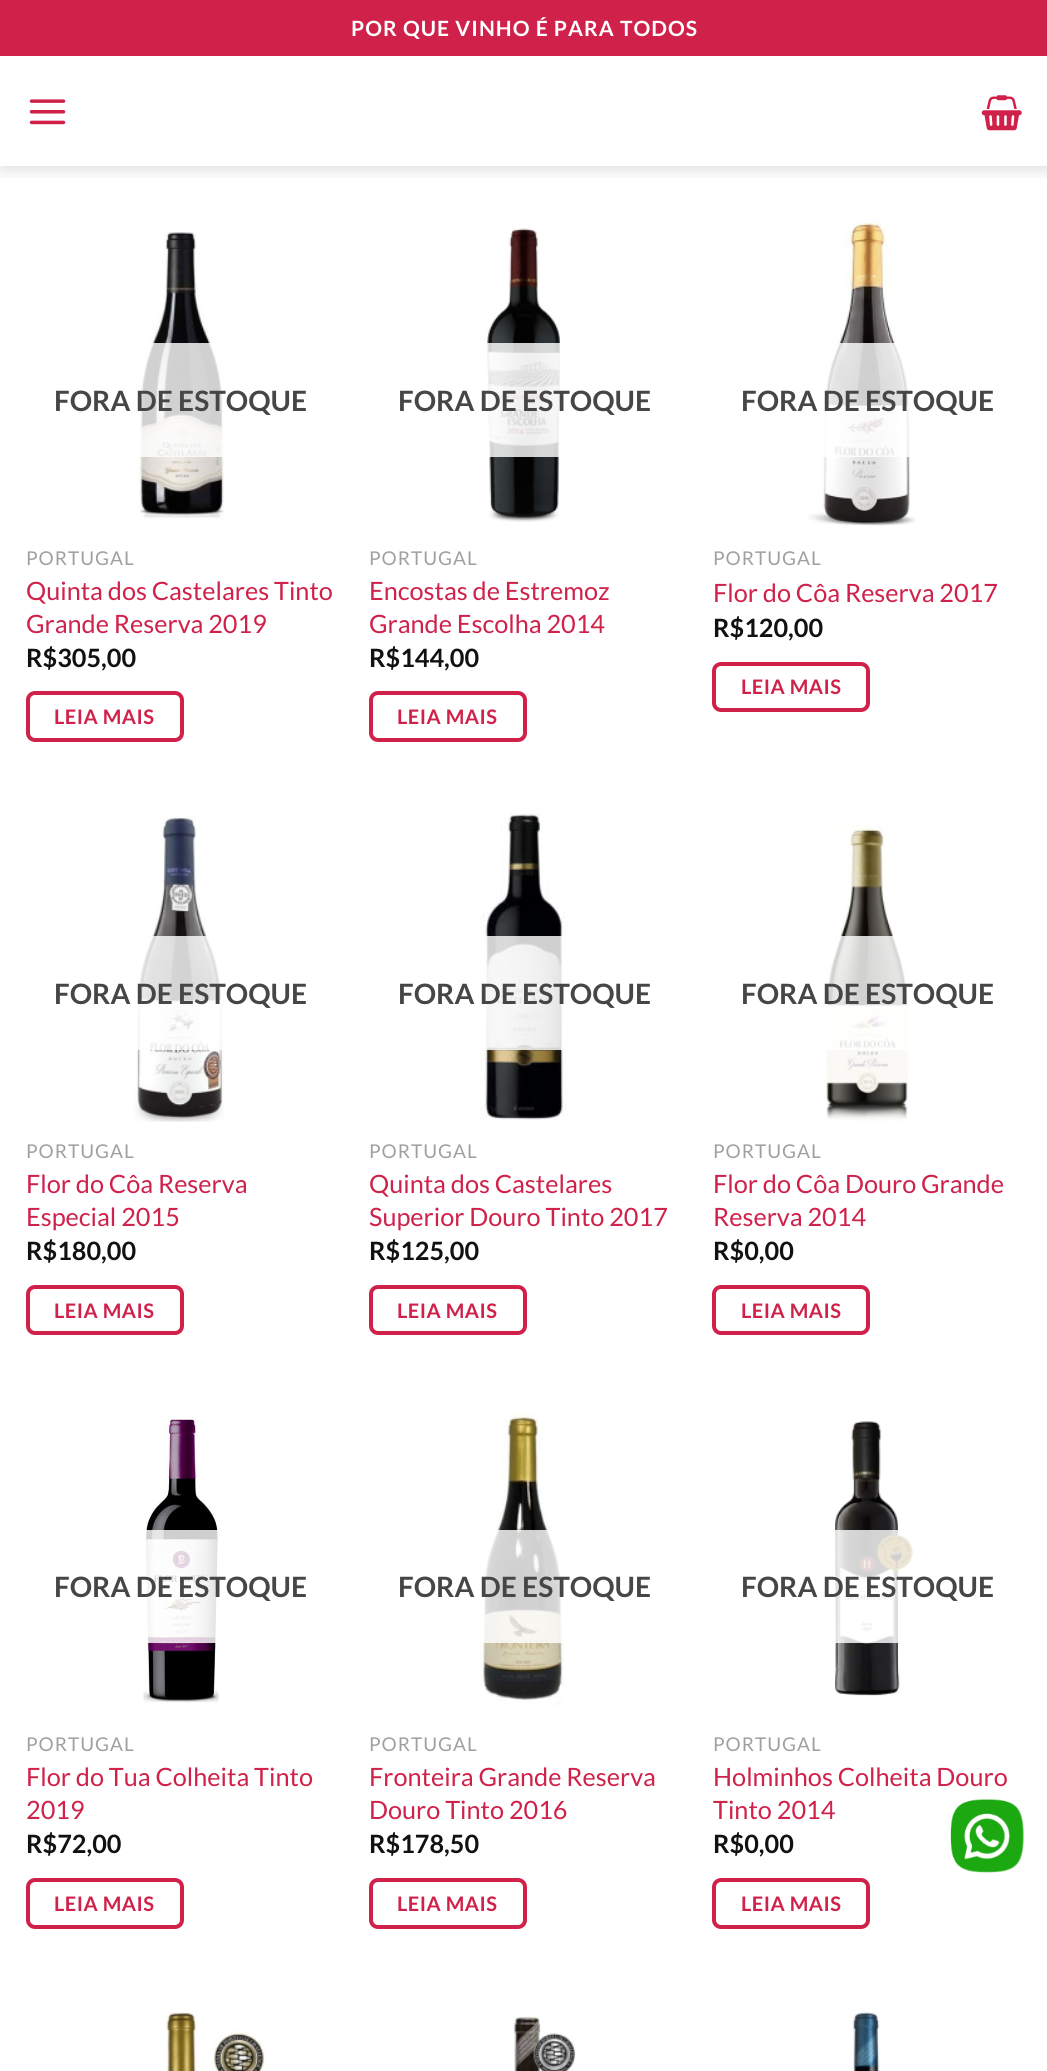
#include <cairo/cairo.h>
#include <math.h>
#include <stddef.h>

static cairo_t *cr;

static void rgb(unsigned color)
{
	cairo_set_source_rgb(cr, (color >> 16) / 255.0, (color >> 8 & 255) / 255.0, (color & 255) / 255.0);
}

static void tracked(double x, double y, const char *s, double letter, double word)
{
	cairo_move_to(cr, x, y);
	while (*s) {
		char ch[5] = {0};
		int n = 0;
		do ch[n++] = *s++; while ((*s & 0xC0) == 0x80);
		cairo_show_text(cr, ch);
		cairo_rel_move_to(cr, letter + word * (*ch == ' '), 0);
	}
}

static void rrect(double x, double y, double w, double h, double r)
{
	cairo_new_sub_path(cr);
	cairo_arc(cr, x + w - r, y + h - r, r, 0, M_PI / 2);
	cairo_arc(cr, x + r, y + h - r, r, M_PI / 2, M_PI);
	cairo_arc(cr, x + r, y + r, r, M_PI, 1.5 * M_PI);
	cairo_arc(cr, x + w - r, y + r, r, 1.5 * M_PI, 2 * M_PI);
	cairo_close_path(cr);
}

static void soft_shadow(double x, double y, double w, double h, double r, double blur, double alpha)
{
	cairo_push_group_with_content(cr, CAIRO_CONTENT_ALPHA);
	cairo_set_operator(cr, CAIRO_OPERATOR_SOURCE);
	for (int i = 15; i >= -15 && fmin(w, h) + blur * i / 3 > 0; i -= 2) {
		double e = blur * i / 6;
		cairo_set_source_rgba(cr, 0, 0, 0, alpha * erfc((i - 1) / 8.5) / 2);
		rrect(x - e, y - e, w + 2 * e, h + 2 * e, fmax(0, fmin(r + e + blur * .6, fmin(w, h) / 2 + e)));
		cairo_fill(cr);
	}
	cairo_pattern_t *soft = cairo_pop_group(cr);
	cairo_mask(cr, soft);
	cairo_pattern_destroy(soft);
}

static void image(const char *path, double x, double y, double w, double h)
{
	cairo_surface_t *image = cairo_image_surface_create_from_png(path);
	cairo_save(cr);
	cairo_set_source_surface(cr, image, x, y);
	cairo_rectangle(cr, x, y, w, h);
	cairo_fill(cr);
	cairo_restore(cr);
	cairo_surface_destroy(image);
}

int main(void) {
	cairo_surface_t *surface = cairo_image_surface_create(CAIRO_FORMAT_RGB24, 1047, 2071);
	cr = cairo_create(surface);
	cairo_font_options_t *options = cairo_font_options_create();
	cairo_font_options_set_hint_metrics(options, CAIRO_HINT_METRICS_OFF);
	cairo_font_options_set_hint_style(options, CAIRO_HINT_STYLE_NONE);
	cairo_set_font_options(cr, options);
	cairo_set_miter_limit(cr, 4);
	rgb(0xffffff);
	cairo_paint(cr);
	cairo_save(cr);
	cairo_rectangle(cr, 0, 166, 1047, 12);
	cairo_clip(cr);
	rgb(0x000000);
	soft_shadow(2, 2, 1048, 166, 0, 9, 0.15);
	cairo_restore(cr);
	rgb(0xcf214a);
	cairo_rectangle(cr, 0, 0, 1047, 56);
	cairo_fill(cr);
	image("img/1.png", 29, 99, 37, 26);
	image("img/2.png", 981, 95, 41, 36);
	image("img/3.png", 137, 232, 88, 287);
	cairo_set_source_rgba(cr, 1, 1, 1, 0.81);
	cairo_rectangle(cr, 137, 343, 88, 114);
	cairo_fill(cr);
	rrect(28, 693, 154, 47, 7);
	rgb(0xcf214a);
	cairo_set_line_width(cr, 4);
	cairo_stroke(cr);
	image("img/4.png", 487, 228, 73, 294);
	cairo_set_source_rgba(cr, 1, 1, 1, 0.81);
	cairo_rectangle(cr, 487, 343, 73, 114);
	cairo_fill(cr);
	rrect(371, 693, 154, 47, 7);
	rgb(0xcf214a);
	cairo_stroke(cr);
	image("img/5.png", 808, 219, 108, 307);
	cairo_set_source_rgba(cr, 1, 1, 1, 0.81);
	cairo_rectangle(cr, 823, 343, 87, 114);
	cairo_fill(cr);
	rrect(714, 664, 154, 46, 7);
	rgb(0xcf214a);
	cairo_stroke(cr);
	image("img/6.png", 134, 816, 90, 306);
	cairo_set_source_rgba(cr, 1, 1, 1, 0.81);
	cairo_rectangle(cr, 137, 936, 86, 114);
	cairo_fill(cr);
	rrect(28, 1287, 154, 46, 7);
	rgb(0xcf214a);
	cairo_stroke(cr);
	image("img/7.png", 480, 812, 87, 308);
	cairo_set_source_rgba(cr, 1, 1, 1, 0.81);
	cairo_rectangle(cr, 480, 936, 87, 114);
	cairo_fill(cr);
	rrect(371, 1287, 154, 46, 7);
	rgb(0xcf214a);
	cairo_stroke(cr);
	image("img/8.png", 826, 825, 84, 296);
	cairo_set_source_rgba(cr, 1, 1, 1, 0.81);
	cairo_rectangle(cr, 826, 936, 84, 114);
	cairo_fill(cr);
	rrect(714, 1287, 154, 46, 7);
	rgb(0xcf214a);
	cairo_stroke(cr);
	image("img/9.png", 143, 1418, 76, 285);
	cairo_set_source_rgba(cr, 1, 1, 1, 0.81);
	cairo_rectangle(cr, 145, 1530, 74, 113);
	cairo_fill(cr);
	rrect(28, 1880, 154, 47, 7);
	rgb(0xcf214a);
	cairo_stroke(cr);
	image("img/10.png", 480, 1411, 85, 294);
	cairo_set_source_rgba(cr, 1, 1, 1, 0.81);
	cairo_rectangle(cr, 481, 1530, 84, 113);
	cairo_fill(cr);
	rrect(371, 1880, 154, 47, 7);
	rgb(0xcf214a);
	cairo_stroke(cr);
	image("img/11.png", 835, 1421, 80, 275);
	cairo_set_source_rgba(cr, 1, 1, 1, 0.81);
	cairo_rectangle(cr, 835, 1530, 80, 113);
	cairo_fill(cr);
	rrect(714, 1880, 154, 47, 7);
	rgb(0xcf214a);
	cairo_stroke(cr);
	image("img/12.png", 166, 2012, 100, 59);
	image("img/13.png", 513, 2016, 63, 55);
	image("img/14.png", 852, 2011, 28, 60);
	image("img/15.png", 950, 1799, 74, 74);
	cairo_select_font_face(cr, "Lato", CAIRO_FONT_SLANT_NORMAL, CAIRO_FONT_WEIGHT_BOLD);
	cairo_set_font_size(cr, 21);
	rgb(0xffffff);
	tracked(351, 36, "POR QUE VINHO É PARA TODOS", 1.05, 0);
	cairo_set_font_size(cr, 28);
	rgb(0x464646);
	cairo_move_to(cr, 54, 411);
	cairo_show_text(cr, "FORA DE ESTOQUE");
	cairo_select_font_face(cr, "Lato", CAIRO_FONT_SLANT_NORMAL, CAIRO_FONT_WEIGHT_NORMAL);
	cairo_set_font_size(cr, 19);
	rgb(0xa0a0a0);
	tracked(26, 565, "PORTUGAL", 1, 0);
	cairo_set_font_size(cr, 25.25);
	rgb(0xcf214a);
	cairo_move_to(cr, 26, 600);
	cairo_show_text(cr, "Quinta dos Castelares Tinto");
	cairo_move_to(cr, 26, 633);
	cairo_show_text(cr, "Grande Reserva 2019");
	cairo_select_font_face(cr, "Lato", CAIRO_FONT_SLANT_NORMAL, CAIRO_FONT_WEIGHT_BOLD);
	rgb(0x111111);
	cairo_move_to(cr, 26, 667);
	cairo_show_text(cr, "R$305,00");
	cairo_set_font_size(cr, 20);
	rgb(0xcf214a);
	tracked(54, 724, "LEIA MAIS", 0.5, 0);
	cairo_set_font_size(cr, 28);
	rgb(0x464646);
	cairo_move_to(cr, 398, 411);
	cairo_show_text(cr, "FORA DE ESTOQUE");
	cairo_select_font_face(cr, "Lato", CAIRO_FONT_SLANT_NORMAL, CAIRO_FONT_WEIGHT_NORMAL);
	cairo_set_font_size(cr, 19);
	rgb(0xa0a0a0);
	tracked(369, 565, "PORTUGAL", 1, 0);
	cairo_set_font_size(cr, 25.25);
	rgb(0xcf214a);
	cairo_move_to(cr, 369, 600);
	cairo_show_text(cr, "Encostas de Estremoz");
	cairo_move_to(cr, 369, 633);
	cairo_show_text(cr, "Grande Escolha 2014");
	cairo_select_font_face(cr, "Lato", CAIRO_FONT_SLANT_NORMAL, CAIRO_FONT_WEIGHT_BOLD);
	rgb(0x111111);
	cairo_move_to(cr, 369, 667);
	cairo_show_text(cr, "R$144,00");
	cairo_set_font_size(cr, 20);
	rgb(0xcf214a);
	tracked(397, 724, "LEIA MAIS", 0.5, 0);
	cairo_set_font_size(cr, 28);
	rgb(0x464646);
	cairo_move_to(cr, 741, 411);
	cairo_show_text(cr, "FORA DE ESTOQUE");
	cairo_select_font_face(cr, "Lato", CAIRO_FONT_SLANT_NORMAL, CAIRO_FONT_WEIGHT_NORMAL);
	cairo_set_font_size(cr, 19);
	rgb(0xa0a0a0);
	tracked(713, 565, "PORTUGAL", 1, 0);
	cairo_set_font_size(cr, 25.25);
	rgb(0xcf214a);
	cairo_move_to(cr, 713, 602);
	cairo_show_text(cr, "Flor do Côa Reserva 2017");
	cairo_select_font_face(cr, "Lato", CAIRO_FONT_SLANT_NORMAL, CAIRO_FONT_WEIGHT_BOLD);
	rgb(0x111111);
	cairo_move_to(cr, 713, 637);
	cairo_show_text(cr, "R$120,00");
	cairo_set_font_size(cr, 20);
	rgb(0xcf214a);
	tracked(741, 694, "LEIA MAIS", 0.5, 0);
	cairo_set_font_size(cr, 28);
	rgb(0x464646);
	cairo_move_to(cr, 54, 1004);
	cairo_show_text(cr, "FORA DE ESTOQUE");
	cairo_select_font_face(cr, "Lato", CAIRO_FONT_SLANT_NORMAL, CAIRO_FONT_WEIGHT_NORMAL);
	cairo_set_font_size(cr, 19);
	rgb(0xa0a0a0);
	tracked(26, 1158, "PORTUGAL", 1, 0);
	cairo_set_font_size(cr, 25.25);
	rgb(0xcf214a);
	cairo_move_to(cr, 26, 1193);
	cairo_show_text(cr, "Flor do Côa Reserva");
	cairo_move_to(cr, 26, 1226);
	cairo_show_text(cr, "Especial 2015");
	cairo_select_font_face(cr, "Lato", CAIRO_FONT_SLANT_NORMAL, CAIRO_FONT_WEIGHT_BOLD);
	rgb(0x111111);
	cairo_move_to(cr, 26, 1260);
	cairo_show_text(cr, "R$180,00");
	cairo_set_font_size(cr, 20);
	rgb(0xcf214a);
	tracked(54, 1318, "LEIA MAIS", 0.5, 0);
	cairo_set_font_size(cr, 28);
	rgb(0x464646);
	cairo_move_to(cr, 398, 1004);
	cairo_show_text(cr, "FORA DE ESTOQUE");
	cairo_select_font_face(cr, "Lato", CAIRO_FONT_SLANT_NORMAL, CAIRO_FONT_WEIGHT_NORMAL);
	cairo_set_font_size(cr, 19);
	rgb(0xa0a0a0);
	tracked(369, 1158, "PORTUGAL", 1, 0);
	cairo_set_font_size(cr, 25.25);
	rgb(0xcf214a);
	cairo_move_to(cr, 369, 1193);
	cairo_show_text(cr, "Quinta dos Castelares");
	cairo_move_to(cr, 369, 1226);
	cairo_show_text(cr, "Superior Douro Tinto 2017");
	cairo_select_font_face(cr, "Lato", CAIRO_FONT_SLANT_NORMAL, CAIRO_FONT_WEIGHT_BOLD);
	rgb(0x111111);
	cairo_move_to(cr, 369, 1260);
	cairo_show_text(cr, "R$125,00");
	cairo_set_font_size(cr, 20);
	rgb(0xcf214a);
	tracked(397, 1318, "LEIA MAIS", 0.5, 0);
	cairo_set_font_size(cr, 28);
	rgb(0x464646);
	cairo_move_to(cr, 741, 1004);
	cairo_show_text(cr, "FORA DE ESTOQUE");
	cairo_select_font_face(cr, "Lato", CAIRO_FONT_SLANT_NORMAL, CAIRO_FONT_WEIGHT_NORMAL);
	cairo_set_font_size(cr, 19);
	rgb(0xa0a0a0);
	tracked(713, 1158, "PORTUGAL", 1, 0);
	cairo_set_font_size(cr, 25.25);
	rgb(0xcf214a);
	cairo_move_to(cr, 713, 1193);
	cairo_show_text(cr, "Flor do Côa Douro Grande");
	cairo_move_to(cr, 713, 1226);
	cairo_show_text(cr, "Reserva 2014");
	cairo_select_font_face(cr, "Lato", CAIRO_FONT_SLANT_NORMAL, CAIRO_FONT_WEIGHT_BOLD);
	rgb(0x111111);
	cairo_move_to(cr, 713, 1260);
	cairo_show_text(cr, "R$0,00");
	cairo_set_font_size(cr, 20);
	rgb(0xcf214a);
	tracked(741, 1318, "LEIA MAIS", 0.5, 0);
	cairo_set_font_size(cr, 28);
	rgb(0x464646);
	cairo_move_to(cr, 54, 1597);
	cairo_show_text(cr, "FORA DE ESTOQUE");
	cairo_select_font_face(cr, "Lato", CAIRO_FONT_SLANT_NORMAL, CAIRO_FONT_WEIGHT_NORMAL);
	cairo_set_font_size(cr, 19);
	rgb(0xa0a0a0);
	tracked(26, 1751, "PORTUGAL", 1, 0);
	cairo_set_font_size(cr, 25.25);
	rgb(0xcf214a);
	cairo_move_to(cr, 26, 1786);
	cairo_show_text(cr, "Flor do Tua Colheita Tinto");
	cairo_move_to(cr, 26, 1819);
	cairo_show_text(cr, "2019");
	cairo_select_font_face(cr, "Lato", CAIRO_FONT_SLANT_NORMAL, CAIRO_FONT_WEIGHT_BOLD);
	rgb(0x111111);
	cairo_move_to(cr, 26, 1853);
	cairo_show_text(cr, "R$72,00");
	cairo_set_font_size(cr, 20);
	rgb(0xcf214a);
	tracked(54, 1911, "LEIA MAIS", 0.5, 0);
	cairo_set_font_size(cr, 28);
	rgb(0x464646);
	cairo_move_to(cr, 398, 1597);
	cairo_show_text(cr, "FORA DE ESTOQUE");
	cairo_select_font_face(cr, "Lato", CAIRO_FONT_SLANT_NORMAL, CAIRO_FONT_WEIGHT_NORMAL);
	cairo_set_font_size(cr, 19);
	rgb(0xa0a0a0);
	tracked(369, 1751, "PORTUGAL", 1, 0);
	cairo_set_font_size(cr, 25.25);
	rgb(0xcf214a);
	cairo_move_to(cr, 369, 1786);
	cairo_show_text(cr, "Fronteira Grande Reserva");
	cairo_move_to(cr, 369, 1819);
	cairo_show_text(cr, "Douro Tinto 2016");
	cairo_select_font_face(cr, "Lato", CAIRO_FONT_SLANT_NORMAL, CAIRO_FONT_WEIGHT_BOLD);
	rgb(0x111111);
	cairo_move_to(cr, 369, 1853);
	cairo_show_text(cr, "R$178,50");
	cairo_set_font_size(cr, 20);
	rgb(0xcf214a);
	tracked(397, 1911, "LEIA MAIS", 0.5, 0);
	cairo_set_font_size(cr, 28);
	rgb(0x464646);
	cairo_move_to(cr, 741, 1597);
	cairo_show_text(cr, "FORA DE ESTOQUE");
	cairo_select_font_face(cr, "Lato", CAIRO_FONT_SLANT_NORMAL, CAIRO_FONT_WEIGHT_NORMAL);
	cairo_set_font_size(cr, 19);
	rgb(0xa0a0a0);
	tracked(713, 1751, "PORTUGAL", 1, 0);
	cairo_set_font_size(cr, 25.25);
	rgb(0xcf214a);
	cairo_move_to(cr, 713, 1786);
	cairo_show_text(cr, "Holminhos Colheita Douro");
	cairo_move_to(cr, 713, 1819);
	cairo_show_text(cr, "Tinto 2014");
	cairo_select_font_face(cr, "Lato", CAIRO_FONT_SLANT_NORMAL, CAIRO_FONT_WEIGHT_BOLD);
	rgb(0x111111);
	cairo_move_to(cr, 713, 1853);
	cairo_show_text(cr, "R$0,00");
	cairo_set_font_size(cr, 20);
	rgb(0xcf214a);
	tracked(741, 1911, "LEIA MAIS", 0.5, 0);
	cairo_surface_write_to_png(surface, "page.png");
	cairo_font_options_destroy(options);
	cairo_destroy(cr);
	cairo_surface_destroy(surface);
	return 0;
}
